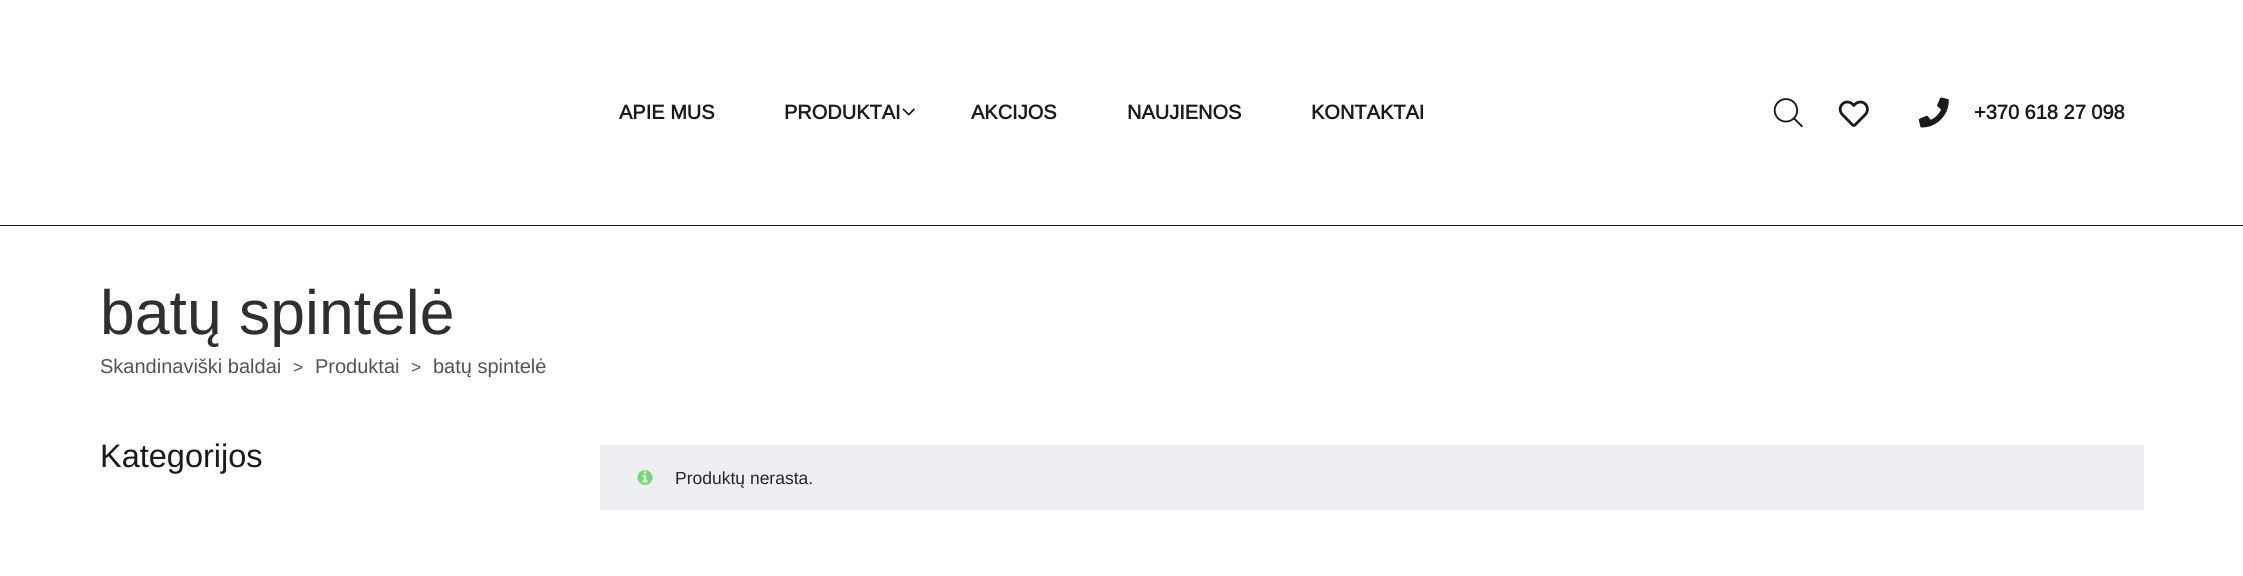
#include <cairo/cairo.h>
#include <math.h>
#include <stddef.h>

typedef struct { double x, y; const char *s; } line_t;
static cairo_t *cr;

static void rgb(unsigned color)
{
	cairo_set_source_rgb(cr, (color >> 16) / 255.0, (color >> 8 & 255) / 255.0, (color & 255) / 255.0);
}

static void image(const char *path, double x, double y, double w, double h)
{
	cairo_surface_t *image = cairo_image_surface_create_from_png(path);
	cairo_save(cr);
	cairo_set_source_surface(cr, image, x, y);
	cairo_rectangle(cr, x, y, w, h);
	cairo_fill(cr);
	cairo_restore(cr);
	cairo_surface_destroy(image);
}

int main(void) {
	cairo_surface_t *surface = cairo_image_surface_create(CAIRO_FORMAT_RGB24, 2243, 576);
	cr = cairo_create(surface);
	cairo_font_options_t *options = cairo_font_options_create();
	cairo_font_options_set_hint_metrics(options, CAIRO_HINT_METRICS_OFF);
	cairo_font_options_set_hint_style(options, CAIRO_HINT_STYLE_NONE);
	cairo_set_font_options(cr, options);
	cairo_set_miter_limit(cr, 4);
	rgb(0xffffff);
	cairo_paint(cr);
	rgb(0x1a1a1a);
	cairo_rectangle(cr, 0, 225, 2243, 1);
	cairo_fill(cr);
	image("img/1.png", 902, 108, 13, 8);
	image("img/2.png", 1773, 98, 30, 30);
	image("img/3.png", 1838, 100, 31, 27);
	image("img/4.png", 1918, 97, 31, 31);
	rgb(0xeeeff2);
	cairo_rectangle(cr, 600, 445, 1544, 65);
	cairo_fill(cr);
	image("img/5.png", 637, 470, 16, 15);
	cairo_select_font_face(cr, "Arimo", CAIRO_FONT_SLANT_NORMAL, CAIRO_FONT_WEIGHT_BOLD);
	cairo_set_font_size(cr, 20);
	rgb(0x1a1a1a);
	{
		static const line_t items[] = {
			{619, 119, "APIE MUS"},
			{784, 119, "PRODUKTAI"},
			{971, 119, "AKCIJOS"},
			{1127, 119, "NAUJIENOS"},
			{1311, 119, "KONTAKTAI"},
			{1974, 119, "+370 618 27 098"},
		};
		for (size_t i = 0; i < sizeof items / sizeof *items; i++) {
			cairo_move_to(cr, items[i].x, items[i].y);
			cairo_show_text(cr, items[i].s);
		}
	}
	cairo_select_font_face(cr, "Arimo", CAIRO_FONT_SLANT_NORMAL, CAIRO_FONT_WEIGHT_NORMAL);
	cairo_set_font_size(cr, 62.5);
	rgb(0x2f2f2f);
	cairo_move_to(cr, 100, 334);
	cairo_show_text(cr, "batų spintelė");
	cairo_set_font_size(cr, 20);
	rgb(0x535353);
	cairo_move_to(cr, 100, 373);
	cairo_show_text(cr, "Skandinaviški baldai");
	cairo_set_font_size(cr, 17.5);
	cairo_move_to(cr, 293, 373);
	cairo_show_text(cr, ">");
	cairo_set_font_size(cr, 20);
	cairo_move_to(cr, 315, 373);
	cairo_show_text(cr, "Produktai");
	cairo_set_font_size(cr, 17.5);
	cairo_move_to(cr, 411, 373);
	cairo_show_text(cr, ">");
	cairo_set_font_size(cr, 20);
	cairo_move_to(cr, 433, 373);
	cairo_show_text(cr, "batų spintelė");
	cairo_set_font_size(cr, 32.5);
	rgb(0x1a1a1a);
	cairo_move_to(cr, 100, 467);
	cairo_show_text(cr, "Kategorijos");
	cairo_set_font_size(cr, 17.5);
	rgb(0x262626);
	cairo_move_to(cr, 675, 484);
	cairo_show_text(cr, "Produktų nerasta.");
	cairo_surface_write_to_png(surface, "page.png");
	cairo_font_options_destroy(options);
	cairo_destroy(cr);
	cairo_surface_destroy(surface);
	return 0;
}
